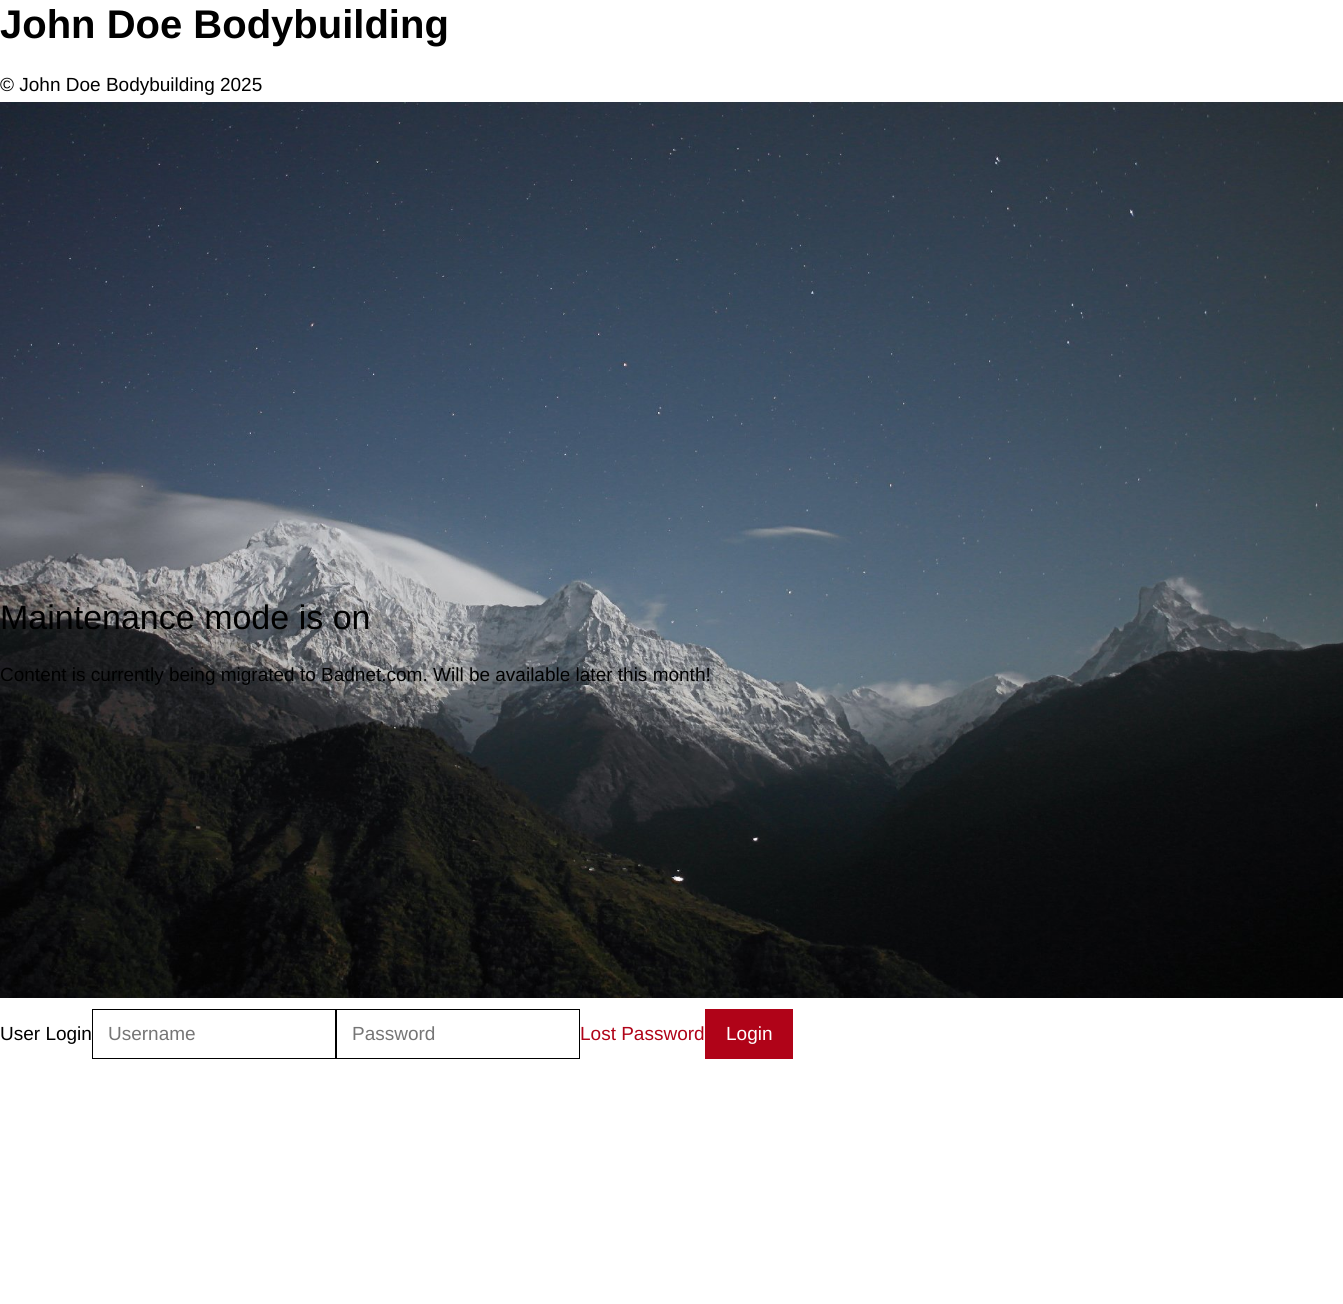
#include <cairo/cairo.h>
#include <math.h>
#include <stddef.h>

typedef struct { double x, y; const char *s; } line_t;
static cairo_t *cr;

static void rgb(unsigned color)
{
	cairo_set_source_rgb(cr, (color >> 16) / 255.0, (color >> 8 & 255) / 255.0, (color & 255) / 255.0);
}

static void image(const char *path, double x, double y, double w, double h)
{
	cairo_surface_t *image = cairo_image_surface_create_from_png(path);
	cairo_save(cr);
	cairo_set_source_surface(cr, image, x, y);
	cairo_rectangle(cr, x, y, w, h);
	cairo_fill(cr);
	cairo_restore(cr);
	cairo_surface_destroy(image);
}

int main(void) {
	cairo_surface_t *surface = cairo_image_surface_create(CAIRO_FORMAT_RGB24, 1343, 1304);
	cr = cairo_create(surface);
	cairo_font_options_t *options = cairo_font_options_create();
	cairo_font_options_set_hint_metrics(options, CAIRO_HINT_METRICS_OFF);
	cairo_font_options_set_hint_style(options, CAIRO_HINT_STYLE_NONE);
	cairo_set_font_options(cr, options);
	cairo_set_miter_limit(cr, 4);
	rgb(0xffffff);
	cairo_paint(cr);
	image("img/1.png", 0, 102, 1343, 896);
	cairo_rectangle(cr, 92.5, 1009.5, 243, 49);
	rgb(0x000000);
	cairo_set_line_width(cr, 1);
	cairo_stroke(cr);
	cairo_rectangle(cr, 336.5, 1009.5, 243, 49);
	cairo_stroke(cr);
	rgb(0xb00318);
	cairo_rectangle(cr, 705, 1009, 88, 50);
	cairo_fill(cr);
	cairo_select_font_face(cr, "Liberation Sans", CAIRO_FONT_SLANT_NORMAL, CAIRO_FONT_WEIGHT_BOLD);
	cairo_set_font_size(cr, 40);
	rgb(0x000000);
	cairo_move_to(cr, 0, 38);
	cairo_show_text(cr, "John Doe Bodybuilding");
	cairo_select_font_face(cr, "Liberation Sans", CAIRO_FONT_SLANT_NORMAL, CAIRO_FONT_WEIGHT_NORMAL);
	cairo_set_font_size(cr, 34);
	cairo_move_to(cr, 0, 629);
	cairo_show_text(cr, "Maintenance mode is on");
	cairo_set_font_size(cr, 19);
	{
		static const line_t items[] = {
			{0, 681, "Content is currently being migrated to Badnet.com. Will be available later this month!"},
			{0, 91, "© John Doe Bodybuilding 2025"},
			{0, 1040, "User Login"},
		};
		for (size_t i = 0; i < sizeof items / sizeof *items; i++) {
			cairo_move_to(cr, items[i].x, items[i].y);
			cairo_show_text(cr, items[i].s);
		}
	}
	rgb(0x757575);
	cairo_move_to(cr, 108, 1040);
	cairo_show_text(cr, "Username");
	cairo_move_to(cr, 352, 1040);
	cairo_show_text(cr, "Password");
	rgb(0xb00318);
	cairo_move_to(cr, 580, 1040);
	cairo_show_text(cr, "Lost Password");
	rgb(0xffffff);
	cairo_move_to(cr, 726, 1040);
	cairo_show_text(cr, "Login");
	cairo_surface_write_to_png(surface, "page.png");
	cairo_font_options_destroy(options);
	cairo_destroy(cr);
	cairo_surface_destroy(surface);
	return 0;
}
